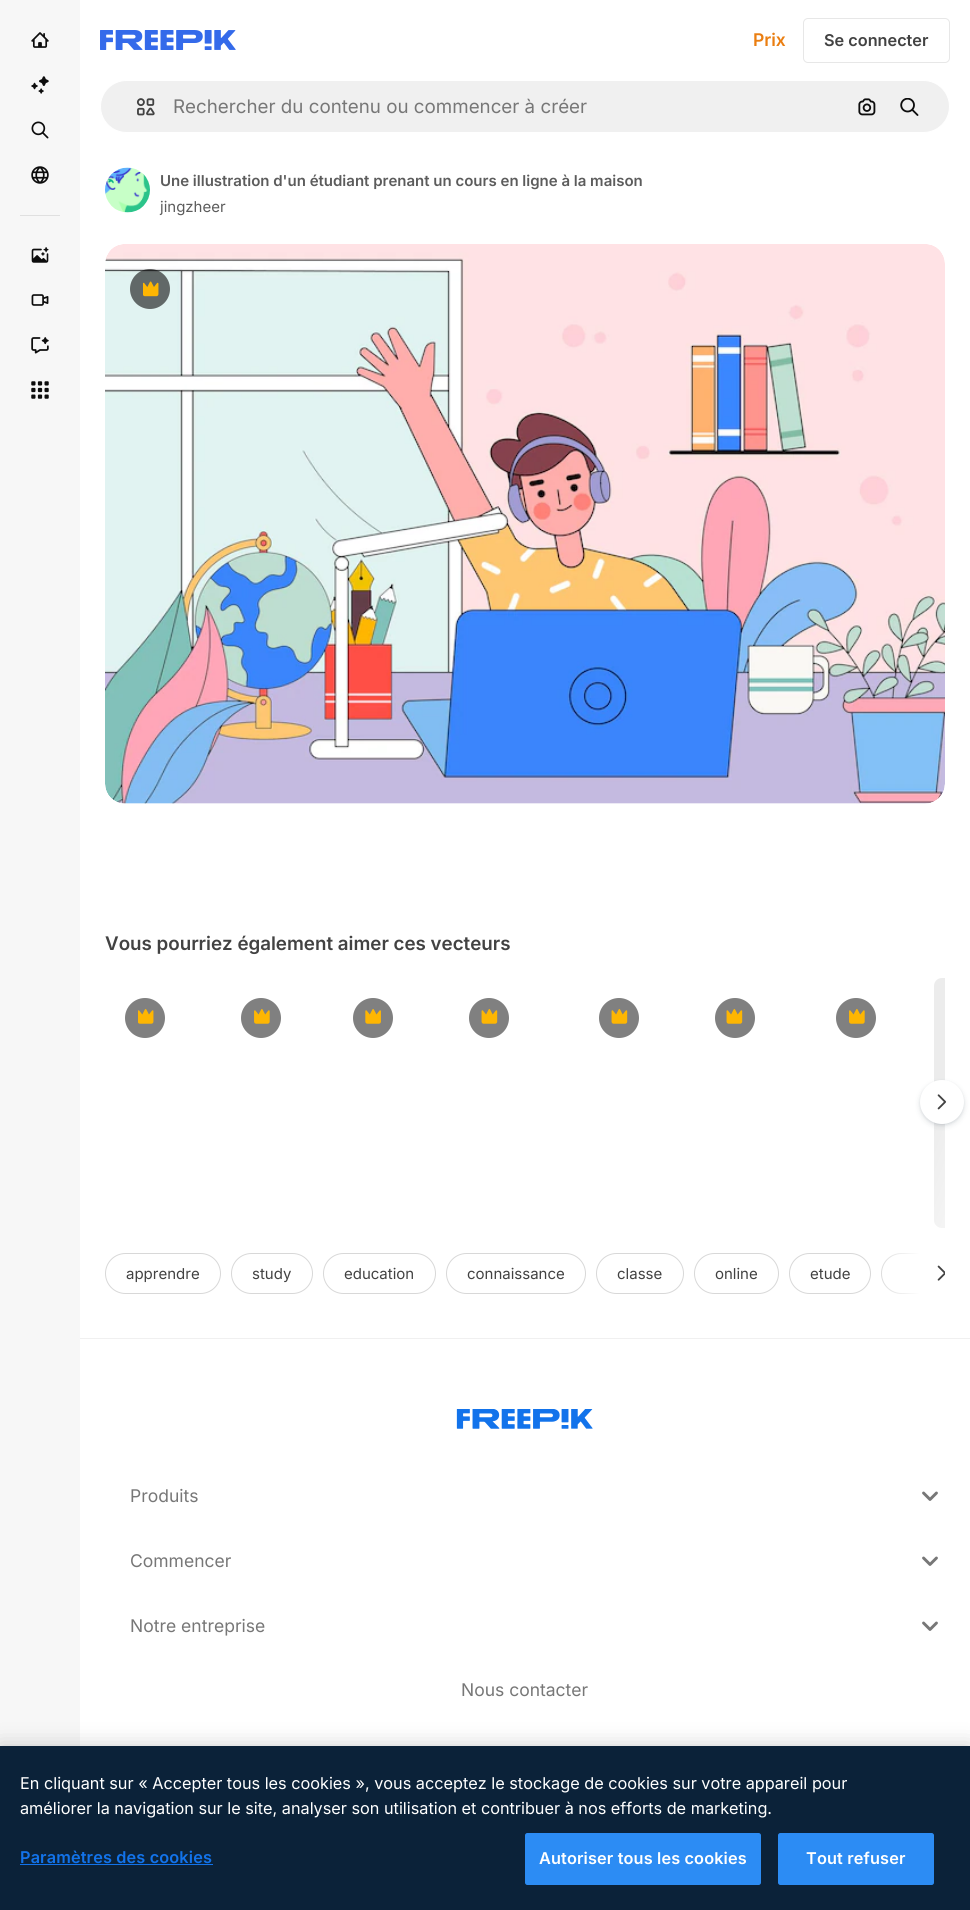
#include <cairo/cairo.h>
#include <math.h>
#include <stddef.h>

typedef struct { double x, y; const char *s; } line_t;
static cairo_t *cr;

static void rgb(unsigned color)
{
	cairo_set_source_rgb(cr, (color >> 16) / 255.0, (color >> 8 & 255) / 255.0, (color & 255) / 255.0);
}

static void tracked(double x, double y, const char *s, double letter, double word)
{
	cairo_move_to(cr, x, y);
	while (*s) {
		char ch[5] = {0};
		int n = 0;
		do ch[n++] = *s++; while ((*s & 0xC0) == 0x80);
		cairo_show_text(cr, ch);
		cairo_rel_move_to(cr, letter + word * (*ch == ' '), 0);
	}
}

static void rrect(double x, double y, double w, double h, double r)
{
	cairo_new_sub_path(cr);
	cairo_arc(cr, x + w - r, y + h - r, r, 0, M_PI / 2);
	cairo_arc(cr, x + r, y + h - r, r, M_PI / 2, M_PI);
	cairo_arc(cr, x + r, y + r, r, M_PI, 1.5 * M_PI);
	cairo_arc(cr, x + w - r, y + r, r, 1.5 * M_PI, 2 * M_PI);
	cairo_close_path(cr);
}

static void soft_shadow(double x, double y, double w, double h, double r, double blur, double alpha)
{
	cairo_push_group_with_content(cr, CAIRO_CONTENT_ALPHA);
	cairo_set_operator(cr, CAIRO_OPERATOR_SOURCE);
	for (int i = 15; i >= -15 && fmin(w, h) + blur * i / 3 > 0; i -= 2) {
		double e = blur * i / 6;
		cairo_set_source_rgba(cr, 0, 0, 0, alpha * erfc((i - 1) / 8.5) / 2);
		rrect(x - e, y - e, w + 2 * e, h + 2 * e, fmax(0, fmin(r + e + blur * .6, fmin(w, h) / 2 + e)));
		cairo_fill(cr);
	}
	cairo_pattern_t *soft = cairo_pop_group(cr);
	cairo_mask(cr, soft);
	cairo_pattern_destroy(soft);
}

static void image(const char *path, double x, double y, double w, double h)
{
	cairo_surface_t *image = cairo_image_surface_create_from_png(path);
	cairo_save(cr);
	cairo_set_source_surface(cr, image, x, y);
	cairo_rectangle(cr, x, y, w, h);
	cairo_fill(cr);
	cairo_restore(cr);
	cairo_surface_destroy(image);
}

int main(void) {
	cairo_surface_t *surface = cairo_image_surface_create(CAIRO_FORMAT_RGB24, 970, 1910);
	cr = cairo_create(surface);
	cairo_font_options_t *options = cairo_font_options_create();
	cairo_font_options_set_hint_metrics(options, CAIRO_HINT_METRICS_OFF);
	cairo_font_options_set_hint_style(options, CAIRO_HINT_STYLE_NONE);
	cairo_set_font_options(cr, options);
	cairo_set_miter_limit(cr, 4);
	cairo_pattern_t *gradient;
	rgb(0xffffff);
	cairo_paint(cr);
	rgb(0xf7f7f7);
	cairo_rectangle(cr, 0, 0, 80, 1746);
	cairo_fill(cr);
	image("img/1.png", 31, 32, 18, 16);
	image("img/2.png", 31, 76, 18, 18);
	image("img/3.png", 31, 121, 18, 18);
	image("img/4.png", 31, 166, 18, 18);
	rgb(0xe0e0e0);
	cairo_rectangle(cr, 20, 215, 40, 1);
	cairo_fill(cr);
	image("img/5.png", 31, 247, 18, 16);
	image("img/6.png", 31, 294, 18, 12);
	image("img/7.png", 31, 337, 18, 17);
	image("img/8.png", 31, 381, 18, 18);
	image("img/9.png", 100, 30, 136, 20);
	rrect(803.5, 18.5, 146, 44, 4.5);
	rgb(0xe7e7e7);
	cairo_set_line_width(cr, 1);
	cairo_stroke(cr);
	rgb(0xf0f0f0);
	rrect(100.5, 80.5, 849, 52, 26);
	cairo_fill_preserve(cr);
	rgb(0xffffff);
	cairo_stroke(cr);
	image("img/10.png", 136, 98, 19, 18);
	image("img/11.png", 858, 98, 18, 18);
	image("img/12.png", 900, 98, 19, 18);
	image("img/13.png", 105, 167, 45, 46);
	image("img/14.png", 105, 244, 840, 560);
	cairo_set_source_rgba(cr, 0.051, 0.051, 0.051, 0.6);
	cairo_arc(cr, 150, 289, 20, 0, 2 * M_PI);
	cairo_fill(cr);
	image("img/15.png", 143, 281, 16, 16);
	rgb(0x808080);
	cairo_arc(cr, 145, 1018, 20, 0, 2 * M_PI);
	cairo_fill(cr);
	image("img/16.png", 138, 1009, 16, 15);
	cairo_arc(cr, 261, 1018, 20, 0, 2 * M_PI);
	cairo_fill(cr);
	image("img/17.png", 254, 1009, 16, 15);
	cairo_arc(cr, 373, 1018, 20, 0, 2 * M_PI);
	cairo_fill(cr);
	image("img/18.png", 365, 1009, 16, 15);
	cairo_arc(cr, 489, 1018, 20, 0, 2 * M_PI);
	cairo_fill(cr);
	image("img/19.png", 481, 1009, 17, 15);
	cairo_arc(cr, 619, 1018, 20, 0, 2 * M_PI);
	cairo_fill(cr);
	image("img/19.png", 611, 1009, 17, 15);
	cairo_arc(cr, 735, 1018, 20, 0, 2 * M_PI);
	cairo_fill(cr);
	image("img/19.png", 726, 1009, 17, 15);
	cairo_arc(cr, 856, 1018, 20, 0, 2 * M_PI);
	cairo_fill(cr);
	image("img/17.png", 849, 1009, 16, 15);
	gradient = cairo_pattern_create_linear(923, 1008, 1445, 1197);
	cairo_pattern_add_color_stop_rgba(gradient, 0.08, 0.925, 0.925, 0.925, 1);
	cairo_pattern_add_color_stop_rgba(gradient, 0.18, 0.961, 0.961, 0.961, 1);
	cairo_pattern_add_color_stop_rgba(gradient, 0.33, 0.925, 0.925, 0.925, 1);
	cairo_set_source(cr, gradient);
	cairo_pattern_destroy(gradient);
	cairo_new_path(cr);
	cairo_move_to(cr, 942, 978);
	cairo_line_to(cr, 945, 978);
	cairo_line_to(cr, 945, 1228);
	cairo_line_to(cr, 942, 1228);
	cairo_curve_to(cr, 937.5, 1228, 934, 1224.5, 934, 1220);
	cairo_line_to(cr, 934, 986);
	cairo_curve_to(cr, 934, 981.5, 937.5, 978, 942, 978);
	cairo_close_path(cr);
	cairo_fill(cr);
	rgb(0x374957);
	soft_shadow(920, 1083, 44, 43, 21.5, 3, 0.15);
	soft_shadow(920, 1081, 44, 44, 22, 1, 0.1);
	rgb(0xffffff);
	cairo_arc(cr, 942, 1102, 22, 0, 2 * M_PI);
	cairo_fill(cr);
	image("img/20.png", 937, 1094, 10, 16);
	rrect(105.5, 1253.5, 115, 40, 20);
	rgb(0xd8d8d8);
	cairo_stroke(cr);
	rrect(231.5, 1253.5, 81, 40, 20);
	cairo_stroke(cr);
	rrect(323.5, 1253.5, 112, 40, 20);
	cairo_stroke(cr);
	rrect(446.5, 1253.5, 139, 40, 20);
	cairo_stroke(cr);
	rrect(596.5, 1253.5, 87, 40, 20);
	cairo_stroke(cr);
	rrect(694.5, 1253.5, 84, 40, 20);
	cairo_stroke(cr);
	rrect(789.5, 1253.5, 81, 40, 20);
	cairo_stroke(cr);
	cairo_save(cr);
	cairo_rectangle(cr, 105, 1253, 840, 41);
	cairo_clip(cr);
	rrect(881.5, 1253.5, 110, 40, 20);
	cairo_stroke(cr);
	cairo_restore(cr);
	rgb(0xffffff);
	cairo_rectangle(cr, 920, 1253, 25, 41);
	cairo_fill(cr);
	gradient = cairo_pattern_create_linear(920, 1273, 876, 1273);
	cairo_pattern_add_color_stop_rgba(gradient, 0, 1, 1, 1, 1);
	cairo_pattern_add_color_stop_rgba(gradient, 1, 1, 1, 1, 0);
	cairo_set_source(cr, gradient);
	cairo_pattern_destroy(gradient);
	cairo_rectangle(cr, 881, 1253, 39, 41);
	cairo_fill(cr);
	image("img/21.png", 937, 1265, 8, 16);
	rgb(0xf0f0f0);
	cairo_rectangle(cr, 80, 1338, 890, 1);
	cairo_fill(cr);
	image("img/22.png", 456, 1409, 137, 20);
	image("img/23.png", 922, 1491, 16, 10);
	image("img/23.png", 922, 1556, 16, 10);
	image("img/23.png", 922, 1621, 16, 10);
	rgb(0x000000);
	soft_shadow(0, 1746, 970, 164, 0, 11, 0.2);
	rgb(0x0b2239);
	cairo_rectangle(cr, 0, 1746, 970, 164);
	cairo_fill(cr);
	rgb(0x1273eb);
	cairo_rectangle(cr, 20, 1864, 193, 1);
	cairo_fill(cr);
	rgb(0x2c8cf4);
	rrect(525.5, 1833.5, 235, 51, 2);
	cairo_fill_preserve(cr);
	cairo_stroke(cr);
	rrect(778.5, 1833.5, 155, 51, 2);
	cairo_fill_preserve(cr);
	cairo_stroke(cr);
	cairo_select_font_face(cr, "Inter SemiBold", CAIRO_FONT_SLANT_NORMAL, CAIRO_FONT_WEIGHT_NORMAL);
	cairo_set_font_size(cr, 17.5);
	rgb(0xea7e11);
	cairo_move_to(cr, 753, 46);
	cairo_show_text(cr, "Prix");
	cairo_set_font_size(cr, 16.25);
	rgb(0x424242);
	cairo_move_to(cr, 824, 46);
	cairo_show_text(cr, "Se connecter");
	cairo_select_font_face(cr, "Inter", CAIRO_FONT_SLANT_NORMAL, CAIRO_FONT_WEIGHT_NORMAL);
	cairo_set_font_size(cr, 18.75);
	rgb(0x777777);
	cairo_move_to(cr, 173, 113);
	cairo_show_text(cr, "Rechercher du contenu ou commencer à créer");
	cairo_select_font_face(cr, "Inter SemiBold", CAIRO_FONT_SLANT_NORMAL, CAIRO_FONT_WEIGHT_NORMAL);
	cairo_set_font_size(cr, 15);
	rgb(0x5c5c5c);
	cairo_move_to(cr, 160, 186);
	cairo_show_text(cr, "Une illustration d'un étudiant prenant un cours en ligne à la maison");
	cairo_select_font_face(cr, "Inter", CAIRO_FONT_SLANT_NORMAL, CAIRO_FONT_WEIGHT_NORMAL);
	cairo_move_to(cr, 160, 212);
	cairo_show_text(cr, "jingzheer");
	cairo_select_font_face(cr, "Inter SemiBold", CAIRO_FONT_SLANT_NORMAL, CAIRO_FONT_WEIGHT_NORMAL);
	cairo_set_font_size(cr, 18.75);
	rgb(0x424242);
	cairo_move_to(cr, 105, 950);
	cairo_show_text(cr, "Vous pourriez également aimer ces vecteurs");
	cairo_select_font_face(cr, "Inter", CAIRO_FONT_SLANT_NORMAL, CAIRO_FONT_WEIGHT_NORMAL);
	cairo_set_font_size(cr, 15);
	{
		static const line_t items[] = {
			{126, 1279, "apprendre"},
			{252, 1279, "study"},
			{344, 1279, "education"},
			{467, 1279, "connaissance"},
			{617, 1279, "classe"},
			{715, 1279, "online"},
			{810, 1279, "etude"},
		};
		for (size_t i = 0; i < sizeof items / sizeof *items; i++) {
			cairo_move_to(cr, items[i].x, items[i].y);
			cairo_show_text(cr, items[i].s);
		}
	}
	cairo_set_font_size(cr, 17.5);
	rgb(0x777777);
	{
		static const line_t items[] = {
			{130, 1502, "Produits"},
			{130, 1567, "Commencer"},
			{130, 1632, "Notre entreprise"},
			{461, 1696, "Nous contacter"},
		};
		for (size_t i = 0; i < sizeof items / sizeof *items; i++) {
			cairo_move_to(cr, items[i].x, items[i].y);
			cairo_show_text(cr, items[i].s);
		}
	}
	cairo_set_font_size(cr, 16.25);
	rgb(0xffffff);
	cairo_move_to(cr, 20, 1789);
	cairo_show_text(cr, "En cliquant sur « Accepter tous les cookies », vous acceptez le stockage de cookies sur votre appareil pour");
	cairo_move_to(cr, 20, 1814);
	cairo_show_text(cr, "améliorer la navigation sur le site, analyser son utilisation et contribuer à nos efforts de marketing.");
	cairo_select_font_face(cr, "Inter SemiBold", CAIRO_FONT_SLANT_NORMAL, CAIRO_FONT_WEIGHT_NORMAL);
	rgb(0x1273eb);
	tracked(20, 1863, "Paramètres des cookies", 0.15, 0);
	rgb(0xffffff);
	tracked(539, 1864, "Autoriser tous les cookies", 0.15, 0);
	tracked(806, 1864, "Tout refuser", 0.15, 0);
	cairo_surface_write_to_png(surface, "page.png");
	cairo_font_options_destroy(options);
	cairo_destroy(cr);
	cairo_surface_destroy(surface);
	return 0;
}
